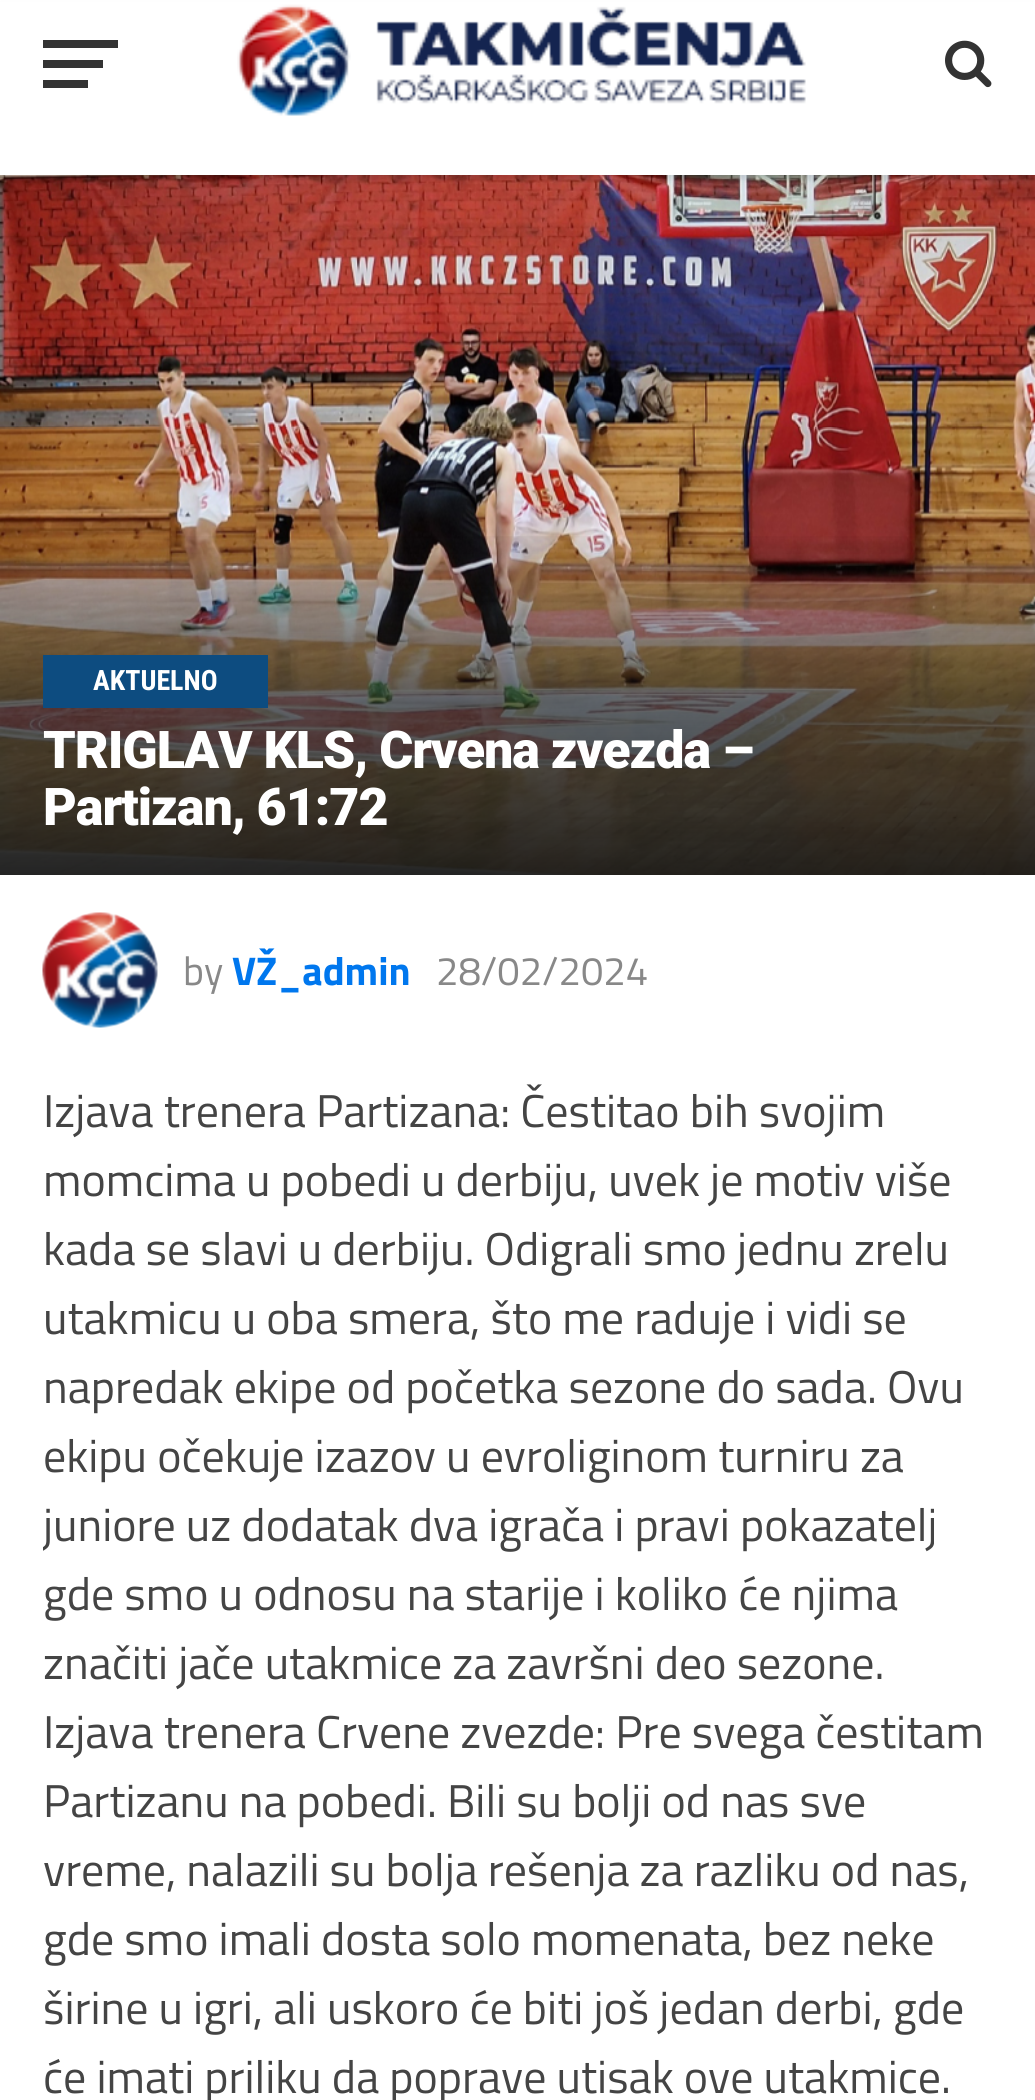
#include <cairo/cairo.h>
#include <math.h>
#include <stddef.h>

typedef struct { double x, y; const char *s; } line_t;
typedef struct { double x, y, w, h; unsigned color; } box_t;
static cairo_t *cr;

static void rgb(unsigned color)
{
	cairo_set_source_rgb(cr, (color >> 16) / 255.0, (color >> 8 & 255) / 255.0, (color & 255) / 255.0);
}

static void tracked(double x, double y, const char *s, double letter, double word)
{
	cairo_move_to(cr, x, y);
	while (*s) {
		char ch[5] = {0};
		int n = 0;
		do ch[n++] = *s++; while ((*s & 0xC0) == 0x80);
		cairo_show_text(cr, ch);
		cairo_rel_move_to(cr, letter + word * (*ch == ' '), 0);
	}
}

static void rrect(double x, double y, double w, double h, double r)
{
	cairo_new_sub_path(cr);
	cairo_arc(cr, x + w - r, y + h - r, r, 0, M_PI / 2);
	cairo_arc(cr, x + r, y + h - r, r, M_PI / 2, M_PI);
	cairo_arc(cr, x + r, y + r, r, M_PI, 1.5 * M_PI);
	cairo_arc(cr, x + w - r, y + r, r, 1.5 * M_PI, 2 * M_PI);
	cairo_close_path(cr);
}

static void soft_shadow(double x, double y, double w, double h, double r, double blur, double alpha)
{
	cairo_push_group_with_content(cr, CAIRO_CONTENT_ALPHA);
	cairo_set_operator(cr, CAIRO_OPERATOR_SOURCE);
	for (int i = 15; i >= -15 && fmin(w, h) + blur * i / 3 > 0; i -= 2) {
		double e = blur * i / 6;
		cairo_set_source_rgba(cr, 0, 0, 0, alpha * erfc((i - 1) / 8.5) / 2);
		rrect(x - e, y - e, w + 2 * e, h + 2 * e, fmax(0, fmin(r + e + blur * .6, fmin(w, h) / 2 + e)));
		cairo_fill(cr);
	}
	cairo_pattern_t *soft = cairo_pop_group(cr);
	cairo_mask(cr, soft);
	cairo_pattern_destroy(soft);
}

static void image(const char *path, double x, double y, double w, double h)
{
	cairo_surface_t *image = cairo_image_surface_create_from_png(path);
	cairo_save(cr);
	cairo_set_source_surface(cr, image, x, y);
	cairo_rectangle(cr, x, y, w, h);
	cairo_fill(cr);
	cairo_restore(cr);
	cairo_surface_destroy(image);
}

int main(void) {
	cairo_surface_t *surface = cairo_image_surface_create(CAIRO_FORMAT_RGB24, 1035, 2100);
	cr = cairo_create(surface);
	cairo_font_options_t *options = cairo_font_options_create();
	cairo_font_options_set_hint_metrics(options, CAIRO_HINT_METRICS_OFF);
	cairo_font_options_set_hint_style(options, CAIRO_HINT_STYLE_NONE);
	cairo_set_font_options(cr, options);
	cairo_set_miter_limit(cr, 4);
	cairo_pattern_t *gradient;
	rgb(0xffffff);
	cairo_paint(cr);
	image("img/3.png", 0, 175, 1035, 700);
	rgb(0x000000);
	soft_shadow(0, 5, 1035, 175, 0, 2.5, 0.1);
	{
		static const box_t items[] = {
			{0, 2, 1035, 173, 0xffffff},
			{43, 40, 75, 8, 0x333333},
			{43, 60, 60, 8, 0x333333},
			{43, 80, 45, 8, 0x333333},
		};
		for (size_t i = 0; i < sizeof items / sizeof *items; i++) {
			rgb(items[i].color);
			cairo_rectangle(cr, items[i].x, items[i].y, items[i].w, items[i].h);
			cairo_fill(cr);
		}
	}
	image("img/1.png", 237, 4, 569, 112);
	image("img/2.png", 945, 40, 47, 48);
	gradient = cairo_pattern_create_linear(518, 530, 518, 875);
	cairo_pattern_add_color_stop_rgba(gradient, 0, 0.067, 0.067, 0.067, 0);
	cairo_pattern_add_color_stop_rgba(gradient, 0.5, 0.067, 0.067, 0.067, 0.63);
	cairo_pattern_add_color_stop_rgba(gradient, 1, 0.067, 0.067, 0.067, 0.9);
	cairo_set_source(cr, gradient);
	cairo_pattern_destroy(gradient);
	cairo_rectangle(cr, 0, 536, 1035, 339);
	cairo_fill(cr);
	rgb(0x0d4c80);
	cairo_rectangle(cr, 43, 655, 225, 53);
	cairo_fill(cr);
	image("img/4.png", 42, 912, 116, 116);
	cairo_select_font_face(cr, "Roboto Condensed", CAIRO_FONT_SLANT_NORMAL, CAIRO_FONT_WEIGHT_BOLD);
	cairo_set_font_size(cr, 28);
	rgb(0xffffff);
	cairo_move_to(cr, 93, 690);
	cairo_show_text(cr, "AKTUELNO");
	cairo_select_font_face(cr, "Roboto Black", CAIRO_FONT_SLANT_NORMAL, CAIRO_FONT_WEIGHT_NORMAL);
	cairo_set_font_size(cr, 52);
	tracked(43, 768, "TRIGLAV KLS, Crvena zvezda –", -1.05, 0);
	tracked(43, 825, "Partizan, 61:72", -1.05, 0);
	cairo_select_font_face(cr, "Titillium Web", CAIRO_FONT_SLANT_NORMAL, CAIRO_FONT_WEIGHT_NORMAL);
	cairo_set_font_size(cr, 40);
	rgb(0x888888);
	cairo_move_to(cr, 183, 985);
	cairo_show_text(cr, "by");
	cairo_select_font_face(cr, "Titillium Web", CAIRO_FONT_SLANT_NORMAL, CAIRO_FONT_WEIGHT_BOLD);
	rgb(0x0077ee);
	cairo_move_to(cr, 232, 985);
	cairo_show_text(cr, "VŽ_admin");
	cairo_select_font_face(cr, "Titillium Web", CAIRO_FONT_SLANT_NORMAL, CAIRO_FONT_WEIGHT_NORMAL);
	rgb(0x888888);
	cairo_move_to(cr, 436, 985);
	cairo_show_text(cr, "28/02/2024");
	cairo_set_font_size(cr, 46);
	rgb(0x444444);
	{
		static const line_t items[] = {
			{43, 1127, "Izjava trenera Partizana: Čestitao bih svojim"},
			{43, 1196, "momcima u pobedi u derbiju, uvek je motiv više"},
			{43, 1265, "kada se slavi u derbiju. Odigrali smo jednu zrelu"},
			{43, 1334, "utakmicu u oba smera, što me raduje i vidi se"},
			{43, 1403, "napredak ekipe od početka sezone do sada. Ovu"},
			{43, 1472, "ekipu očekuje izazov u evroliginom turniru za"},
		};
		for (size_t i = 0; i < sizeof items / sizeof *items; i++) {
			cairo_move_to(cr, items[i].x, items[i].y);
			cairo_show_text(cr, items[i].s);
		}
	}
	cairo_save(cr);
	cairo_rectangle(cr, 43, 1078, 950, 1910);
	cairo_clip(cr);
	cairo_move_to(cr, 43, 1541);
	cairo_show_text(cr, "juniore uz dodatak dva igrača i pravi pokazatelj");
	cairo_restore(cr);
	{
		static const line_t items[] = {
			{43, 1610, "gde smo u odnosu na starije i koliko će njima"},
			{43, 1679, "značiti jače utakmice za završni deo sezone."},
			{43, 1748, "Izjava trenera Crvene zvezde: Pre svega čestitam"},
			{43, 1817, "Partizanu na pobedi. Bili su bolji od nas sve"},
			{43, 1886, "vreme, nalazili su bolja rešenja za razliku od nas,"},
			{43, 1955, "gde smo imali dosta solo momenata, bez neke"},
			{43, 2024, "širine u igri, ali uskoro će biti još jedan derbi, gde"},
			{43, 2093, "će imati priliku da poprave utisak ove utakmice."},
		};
		for (size_t i = 0; i < sizeof items / sizeof *items; i++) {
			cairo_move_to(cr, items[i].x, items[i].y);
			cairo_show_text(cr, items[i].s);
		}
	}
	cairo_surface_write_to_png(surface, "page.png");
	cairo_font_options_destroy(options);
	cairo_destroy(cr);
	cairo_surface_destroy(surface);
	return 0;
}
